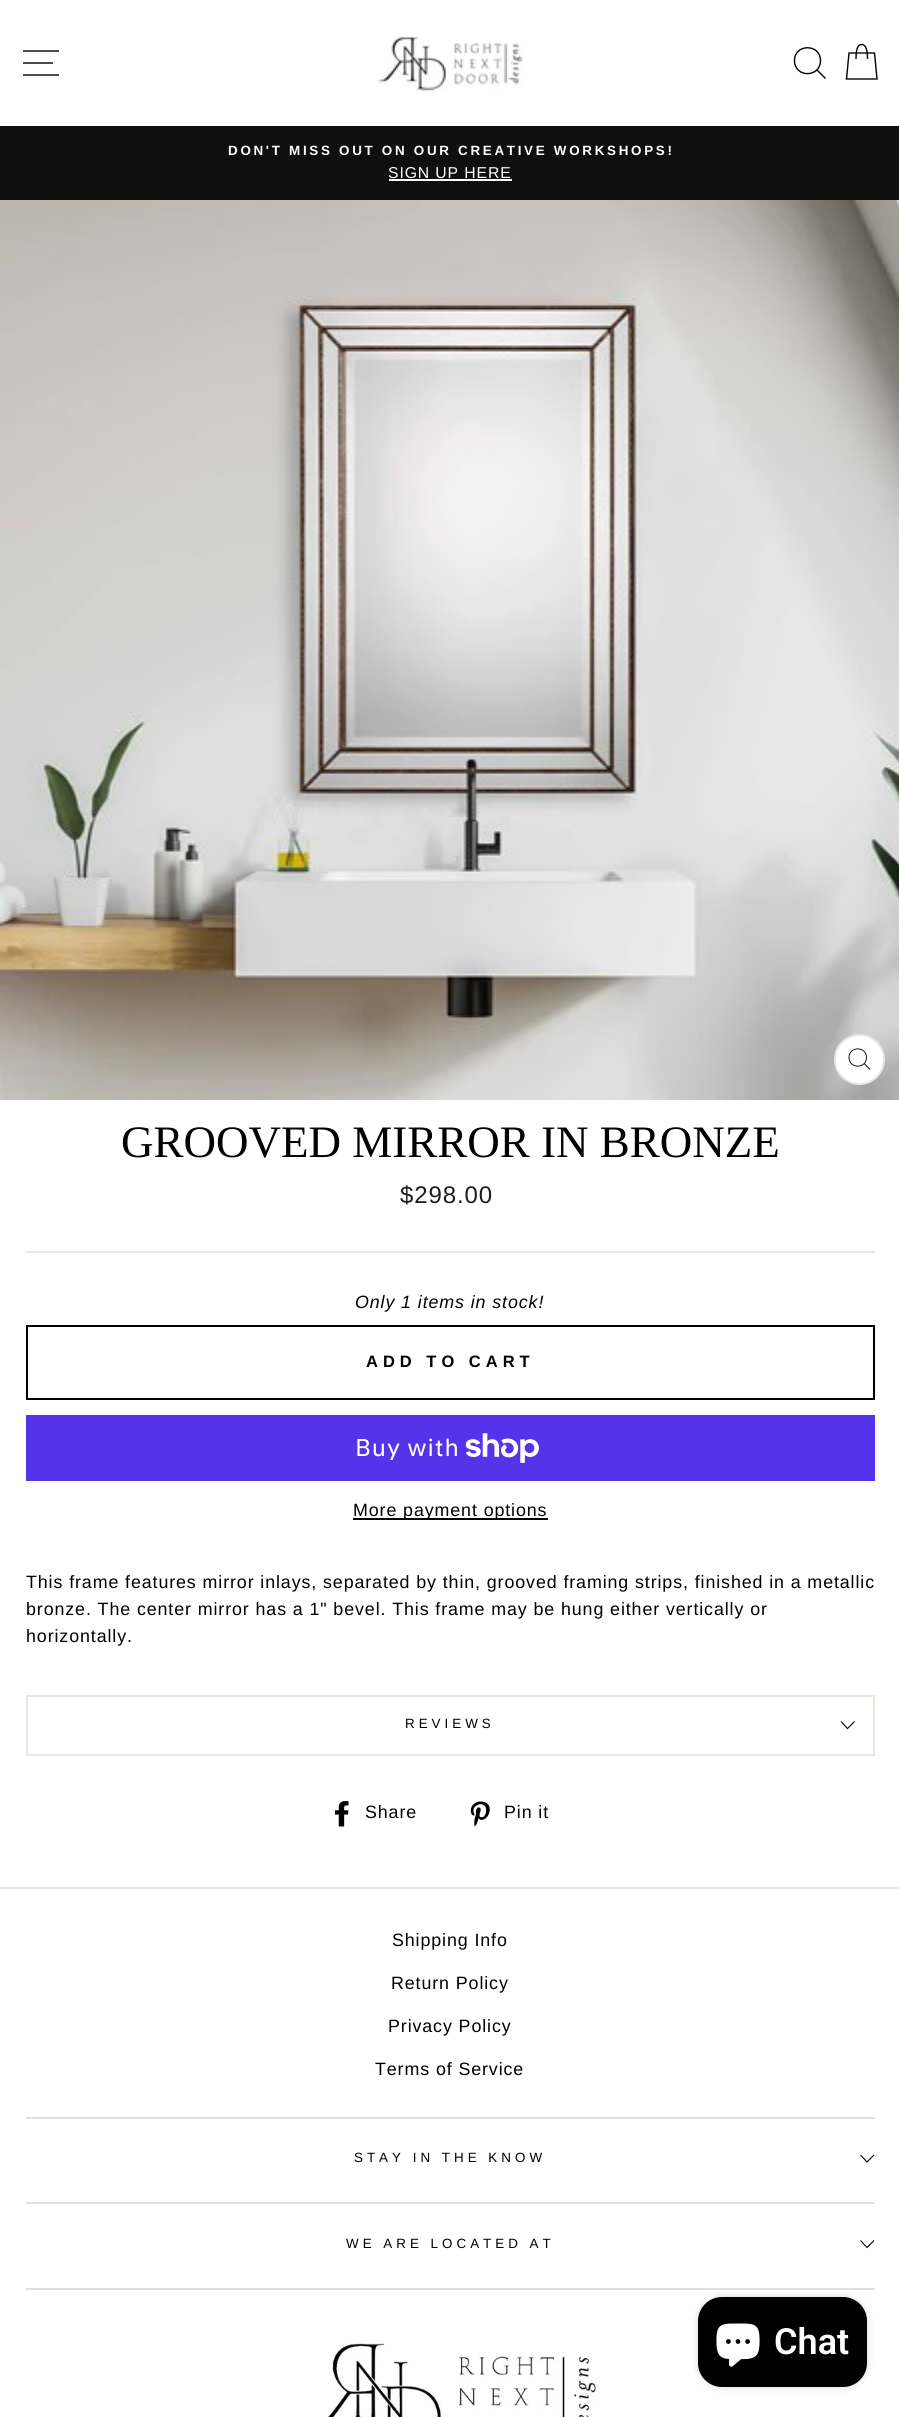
#include <cairo/cairo.h>
#include <math.h>
#include <stddef.h>

typedef struct { double x, y; const char *s; } line_t;
typedef struct { double x, y, w, h; unsigned color; } box_t;
static cairo_t *cr;

static void rgb(unsigned color)
{
	cairo_set_source_rgb(cr, (color >> 16) / 255.0, (color >> 8 & 255) / 255.0, (color & 255) / 255.0);
}

static void tracked(double x, double y, const char *s, double letter, double word)
{
	cairo_move_to(cr, x, y);
	while (*s) {
		char ch[5] = {0};
		int n = 0;
		do ch[n++] = *s++; while ((*s & 0xC0) == 0x80);
		cairo_show_text(cr, ch);
		cairo_rel_move_to(cr, letter + word * (*ch == ' '), 0);
	}
}

static void rrect(double x, double y, double w, double h, double r)
{
	cairo_new_sub_path(cr);
	cairo_arc(cr, x + w - r, y + h - r, r, 0, M_PI / 2);
	cairo_arc(cr, x + r, y + h - r, r, M_PI / 2, M_PI);
	cairo_arc(cr, x + r, y + r, r, M_PI, 1.5 * M_PI);
	cairo_arc(cr, x + w - r, y + r, r, 1.5 * M_PI, 2 * M_PI);
	cairo_close_path(cr);
}

static void soft_shadow(double x, double y, double w, double h, double r, double blur, double alpha)
{
	cairo_push_group_with_content(cr, CAIRO_CONTENT_ALPHA);
	cairo_set_operator(cr, CAIRO_OPERATOR_SOURCE);
	for (int i = 15; i >= -15 && fmin(w, h) + blur * i / 3 > 0; i -= 2) {
		double e = blur * i / 6;
		cairo_set_source_rgba(cr, 0, 0, 0, alpha * erfc((i - 1) / 8.5) / 2);
		rrect(x - e, y - e, w + 2 * e, h + 2 * e, fmax(0, fmin(r + e + blur * .6, fmin(w, h) / 2 + e)));
		cairo_fill(cr);
	}
	cairo_pattern_t *soft = cairo_pop_group(cr);
	cairo_mask(cr, soft);
	cairo_pattern_destroy(soft);
}

static void image(const char *path, double x, double y, double w, double h)
{
	cairo_surface_t *image = cairo_image_surface_create_from_png(path);
	cairo_save(cr);
	cairo_set_source_surface(cr, image, x, y);
	cairo_rectangle(cr, x, y, w, h);
	cairo_fill(cr);
	cairo_restore(cr);
	cairo_surface_destroy(image);
}

int main(void) {
	cairo_surface_t *surface = cairo_image_surface_create(CAIRO_FORMAT_RGB24, 899, 2417);
	cr = cairo_create(surface);
	cairo_font_options_t *options = cairo_font_options_create();
	cairo_font_options_set_hint_metrics(options, CAIRO_HINT_METRICS_OFF);
	cairo_font_options_set_hint_style(options, CAIRO_HINT_STYLE_NONE);
	cairo_set_font_options(cr, options);
	cairo_set_miter_limit(cr, 4);
	rgb(0xffffff);
	cairo_paint(cr);
	cairo_new_path(cr);
	cairo_move_to(cr, 23, 51);
	cairo_line_to(cr, 59, 51);
	cairo_move_to(cr, 23, 63);
	cairo_line_to(cr, 53, 63);
	cairo_move_to(cr, 23, 75);
	cairo_line_to(cr, 59, 75);
	rgb(0x000000);
	cairo_set_line_width(cr, 1.4);
	cairo_stroke(cr);
	image("img/1.png", 378, 36, 145, 55);
	cairo_new_path(cr);
	cairo_move_to(cr, 820.5, 60.5);
	cairo_curve_to(cr, 820.5, 78, 794.5, 78, 794.5, 60.5);
	cairo_curve_to(cr, 794.5, 43.5, 820.5, 43.5, 820.5, 60.5);
	cairo_close_path(cr);
	cairo_move_to(cr, 825.5, 78.5);
	cairo_line_to(cr, 817, 70);
	cairo_stroke(cr);
	cairo_new_path(cr);
	cairo_move_to(cr, 856, 59);
	cairo_curve_to(cr, 856, 47.5, 858.5, 44.5, 861.5, 44.5);
	cairo_curve_to(cr, 865, 44.5, 867.5, 47.5, 867.5, 59);
	cairo_move_to(cr, 849, 53);
	cairo_line_to(cr, 874.5, 53);
	cairo_line_to(cr, 877, 79);
	cairo_line_to(cr, 846.5, 79);
	cairo_close_path(cr);
	cairo_stroke(cr);
	rgb(0x0f0f0f);
	cairo_rectangle(cr, 0, 126, 899, 74);
	cairo_fill(cr);
	rgb(0xffffff);
	cairo_rectangle(cr, 389, 179, 123, 2);
	cairo_fill(cr);
	image("img/2.png", 0, 200, 899, 900);
	cairo_arc(cr, 859.5, 1059.5, 24.5, 0, 2 * M_PI);
	cairo_fill_preserve(cr);
	rgb(0xe8e8e1);
	cairo_set_line_width(cr, 2);
	cairo_stroke(cr);
	cairo_new_path(cr);
	cairo_move_to(cr, 866.5, 1057.5);
	cairo_curve_to(cr, 866.5, 1069, 849, 1069, 849, 1057.5);
	cairo_curve_to(cr, 849, 1046, 866.5, 1046, 866.5, 1057.5);
	cairo_close_path(cr);
	cairo_move_to(cr, 870, 1069.5);
	cairo_line_to(cr, 864, 1063.5);
	rgb(0x000000);
	cairo_set_line_width(cr, 0.9);
	cairo_stroke(cr);
	rgb(0xe8e8e1);
	cairo_rectangle(cr, 26, 1251, 849, 2);
	cairo_fill(cr);
	cairo_rectangle(cr, 27, 1326, 847, 73);
	rgb(0x000000);
	cairo_set_line_width(cr, 2);
	cairo_stroke(cr);
	rgb(0x5433eb);
	cairo_rectangle(cr, 26, 1415, 849, 66);
	cairo_fill(cr);
	image("img/3.png", 465, 1433, 74, 30);
	{
		static const box_t items[] = {
			{353, 1518, 195, 2, 0x000000},
			{26, 1754, 849, 2, 0xe8e8e1},
			{26, 1695, 849, 2, 0xe8e8e1},
			{873, 1695, 2, 59, 0xe8e8e1},
			{26, 1695, 2, 59, 0xe8e8e1},
		};
		for (size_t i = 0; i < sizeof items / sizeof *items; i++) {
			rgb(items[i].color);
			cairo_rectangle(cr, items[i].x, items[i].y, items[i].w, items[i].h);
			cairo_fill(cr);
		}
	}
	cairo_new_path(cr);
	cairo_move_to(cr, 841, 1721.5);
	cairo_line_to(cr, 847.5, 1728.5);
	cairo_line_to(cr, 854.5, 1721.5);
	rgb(0x000000);
	cairo_set_line_width(cr, 1.1);
	cairo_stroke(cr);
	image("img/4.png", 335, 1801, 14, 26);
	image("img/5.png", 470, 1801, 20, 26);
	rgb(0xe8e8e1);
	cairo_rectangle(cr, 0, 1887, 899, 2);
	cairo_fill(cr);
	rgb(0xe0e0e0);
	cairo_rectangle(cr, 26, 2117, 849, 2);
	cairo_fill(cr);
	cairo_new_path(cr);
	cairo_move_to(cr, 860.5, 2155);
	cairo_line_to(cr, 867, 2162);
	cairo_line_to(cr, 874, 2155);
	rgb(0x000000);
	cairo_stroke(cr);
	rgb(0xe0e0e0);
	cairo_rectangle(cr, 26, 2202, 849, 2);
	cairo_fill(cr);
	cairo_new_path(cr);
	cairo_move_to(cr, 860.5, 2240.5);
	cairo_line_to(cr, 867, 2247.5);
	cairo_line_to(cr, 874, 2240.5);
	rgb(0x000000);
	cairo_stroke(cr);
	rgb(0xe0e0e0);
	cairo_rectangle(cr, 26, 2288, 849, 2);
	cairo_fill(cr);
	image("img/6.png", 327, 2343, 271, 74);
	rgb(0x000000);
	soft_shadow(698, 2297, 169, 90, 24, 4, 0.15);
	rgb(0x000000);
	rrect(698, 2297, 169, 90, 24);
	cairo_fill(cr);
	image("img/7.png", 716, 2323, 44, 44);
	cairo_select_font_face(cr, "Liberation Sans", CAIRO_FONT_SLANT_NORMAL, CAIRO_FONT_WEIGHT_BOLD);
	cairo_set_font_size(cr, 13.4);
	rgb(0xffffff);
	tracked(228, 155, "DON'T MISS OUT ON OUR CREATIVE WORKSHOPS!", 2.7, 0);
	cairo_select_font_face(cr, "Liberation Sans", CAIRO_FONT_SLANT_NORMAL, CAIRO_FONT_WEIGHT_NORMAL);
	cairo_set_font_size(cr, 15.75);
	tracked(388, 178, "SIGN UP HERE", 0.89, 0);
	cairo_select_font_face(cr, "Liberation Serif", CAIRO_FONT_SLANT_NORMAL, CAIRO_FONT_WEIGHT_NORMAL);
	cairo_set_font_size(cr, 45);
	rgb(0x000000);
	cairo_move_to(cr, 121, 1157);
	cairo_show_text(cr, "GROOVED MIRROR IN BRONZE");
	cairo_select_font_face(cr, "Liberation Sans", CAIRO_FONT_SLANT_NORMAL, CAIRO_FONT_WEIGHT_NORMAL);
	cairo_set_font_size(cr, 24);
	rgb(0x1c1d1d);
	tracked(400, 1203, "$298.00", 0.89, 0);
	cairo_select_font_face(cr, "Liberation Sans", CAIRO_FONT_SLANT_ITALIC, CAIRO_FONT_WEIGHT_NORMAL);
	cairo_set_font_size(cr, 17.85);
	rgb(0x000000);
	tracked(355, 1308, "Only 1 items in stock!", 0.89, 0);
	cairo_select_font_face(cr, "Liberation Sans", CAIRO_FONT_SLANT_NORMAL, CAIRO_FONT_WEIGHT_BOLD);
	cairo_set_font_size(cr, 16.5);
	tracked(366, 1367, "ADD TO CART", 5, 0);
	cairo_select_font_face(cr, "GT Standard", CAIRO_FONT_SLANT_NORMAL, CAIRO_FONT_WEIGHT_NORMAL);
	cairo_set_font_size(cr, 24);
	rgb(0xffffff);
	tracked(355, 1456, "Buy with", 0.89, 0);
	cairo_select_font_face(cr, "Liberation Sans", CAIRO_FONT_SLANT_NORMAL, CAIRO_FONT_WEIGHT_NORMAL);
	cairo_set_font_size(cr, 17.85);
	rgb(0x000000);
	{
		static const line_t items[] = {
			{353, 1516, "More payment options"},
			{26, 1588, "This frame features mirror inlays, separated by thin, grooved framing strips, finished in a metallic"},
			{26, 1615, "bronze. The center mirror has a 1\" bevel. This frame may be hung either vertically or"},
			{26, 1642, "horizontally."},
		};
		for (size_t i = 0; i < sizeof items / sizeof *items; i++) {
			tracked(items[i].x, items[i].y, items[i].s, 0.89, 0);
		}
	}
	cairo_set_font_size(cr, 13.4);
	tracked(405, 1728, "REVIEWS", 4, 0);
	cairo_set_font_size(cr, 17.85);
	{
		static const line_t items[] = {
			{365, 1818, "Share"},
			{504, 1818, "Pin it"},
			{392, 1946, "Shipping Info"},
			{391, 1989, "Return Policy"},
			{388, 2032, "Privacy Policy"},
			{375, 2075, "Terms of Service"},
		};
		for (size_t i = 0; i < sizeof items / sizeof *items; i++) {
			tracked(items[i].x, items[i].y, items[i].s, 0.89, 0);
		}
	}
	cairo_set_font_size(cr, 13.4);
	tracked(354, 2162, "STAY IN THE KNOW", 4, 0);
	tracked(346, 2248, "WE ARE LOCATED AT", 4, 0);
	cairo_select_font_face(cr, "Roboto SemiBold", CAIRO_FONT_SLANT_NORMAL, CAIRO_FONT_WEIGHT_NORMAL);
	cairo_set_font_size(cr, 36);
	rgb(0xffffff);
	cairo_move_to(cr, 774, 2354);
	cairo_show_text(cr, "Chat");
	cairo_surface_write_to_png(surface, "page.png");
	cairo_font_options_destroy(options);
	cairo_destroy(cr);
	cairo_surface_destroy(surface);
	return 0;
}
